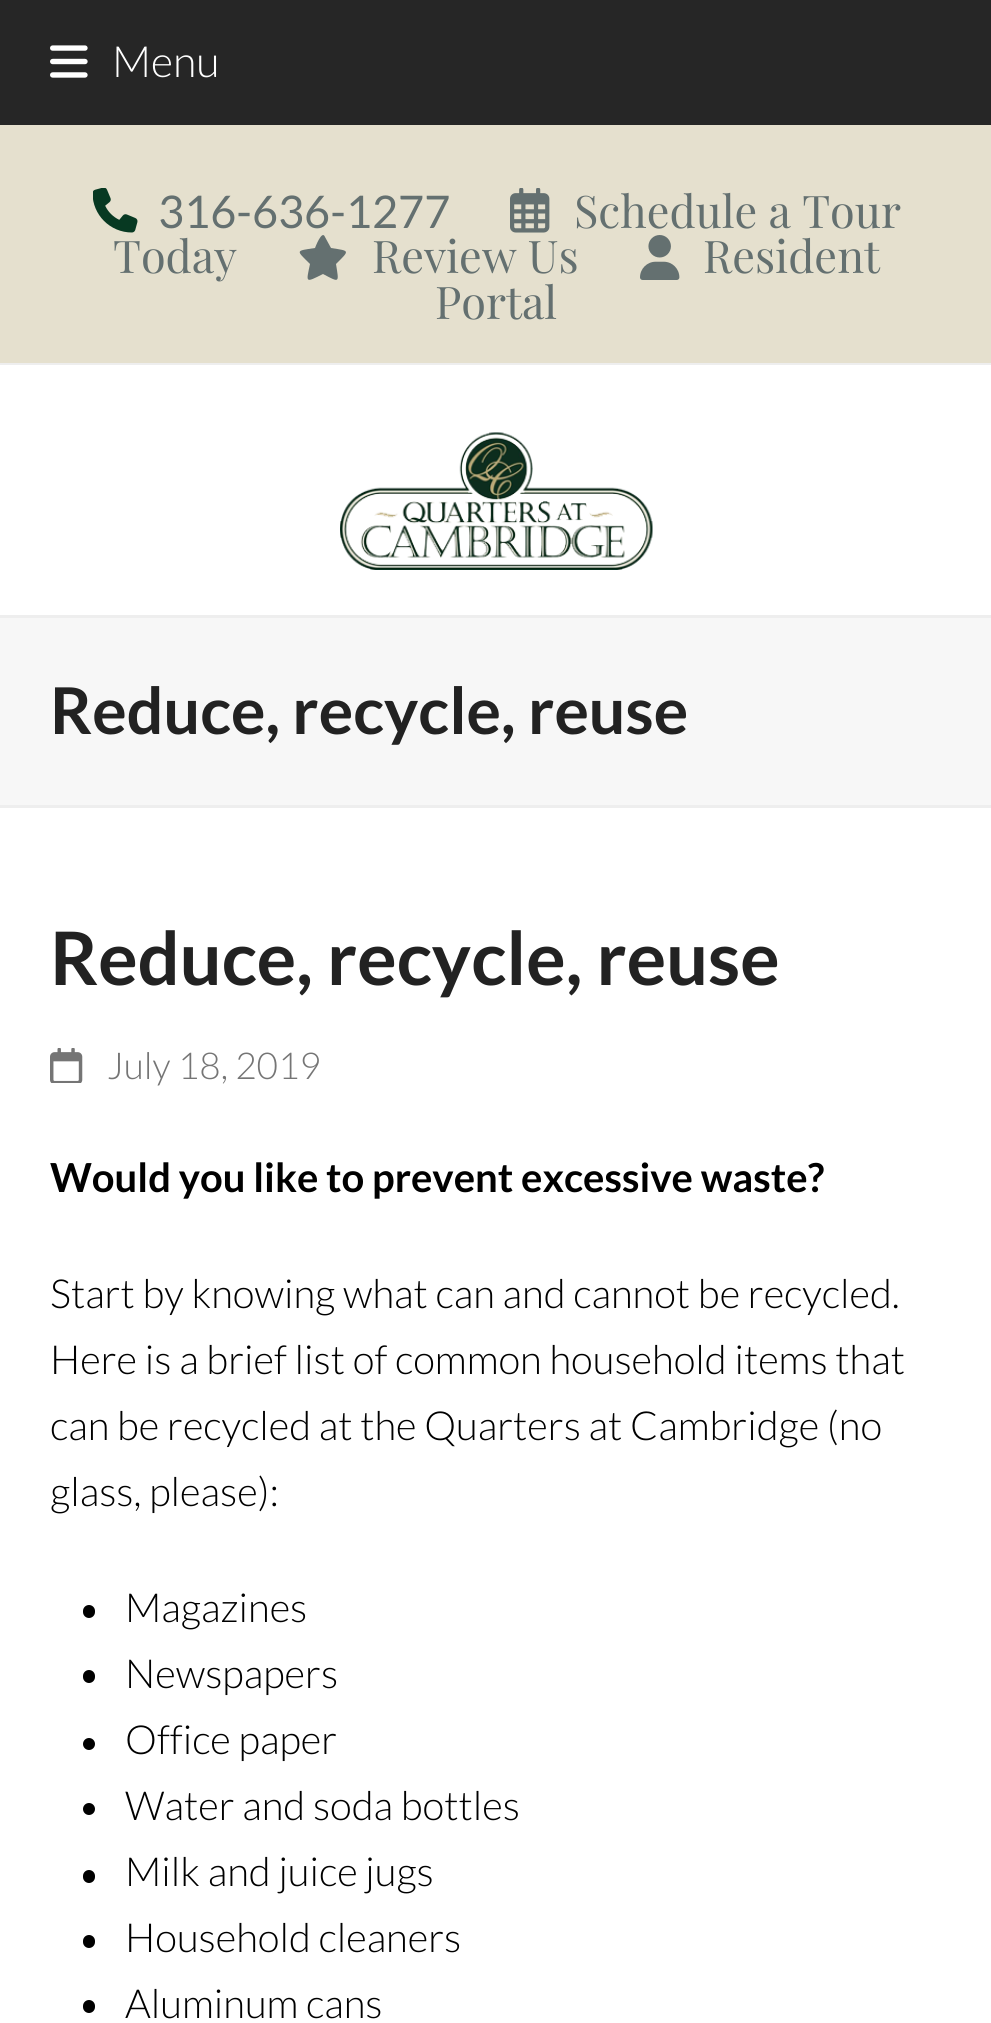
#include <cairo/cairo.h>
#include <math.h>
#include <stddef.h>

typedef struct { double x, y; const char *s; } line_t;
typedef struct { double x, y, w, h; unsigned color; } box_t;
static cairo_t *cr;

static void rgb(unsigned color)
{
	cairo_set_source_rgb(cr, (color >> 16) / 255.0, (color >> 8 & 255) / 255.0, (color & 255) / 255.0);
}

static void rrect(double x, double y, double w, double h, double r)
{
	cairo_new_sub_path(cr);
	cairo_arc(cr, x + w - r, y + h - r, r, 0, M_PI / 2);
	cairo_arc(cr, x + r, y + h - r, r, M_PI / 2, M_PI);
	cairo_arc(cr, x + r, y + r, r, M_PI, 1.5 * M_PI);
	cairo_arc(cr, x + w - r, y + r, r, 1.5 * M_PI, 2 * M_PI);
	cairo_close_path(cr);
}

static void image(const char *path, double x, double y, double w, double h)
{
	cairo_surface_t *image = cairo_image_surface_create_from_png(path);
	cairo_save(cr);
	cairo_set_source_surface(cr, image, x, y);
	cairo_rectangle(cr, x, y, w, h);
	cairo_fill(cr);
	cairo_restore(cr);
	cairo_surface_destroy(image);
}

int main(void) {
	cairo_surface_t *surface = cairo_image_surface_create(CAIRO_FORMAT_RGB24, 991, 2023);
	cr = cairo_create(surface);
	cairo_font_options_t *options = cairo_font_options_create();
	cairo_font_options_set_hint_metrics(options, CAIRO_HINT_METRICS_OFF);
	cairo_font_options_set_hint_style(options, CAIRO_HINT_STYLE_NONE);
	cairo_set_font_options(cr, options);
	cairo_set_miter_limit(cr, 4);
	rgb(0xffffff);
	cairo_paint(cr);
	rgb(0x262626);
	cairo_rectangle(cr, 0, 0, 991, 125);
	cairo_fill(cr);
	image("img/1.png", 50, 45, 38, 33);
	rgb(0xe5e0ce);
	cairo_rectangle(cr, 0, 125, 991, 238);
	cairo_fill(cr);
	rgb(0xeeeeee);
	cairo_rectangle(cr, 0, 363, 991, 2);
	cairo_fill(cr);
	image("img/2.png", 510, 188, 40, 45);
	image("img/3.png", 93, 188, 45, 45);
	image("img/4.png", 640, 235, 40, 45);
	rgb(0x647070);
	cairo_new_path(cr);
	cairo_move_to(cr, 325, 237);
	cairo_curve_to(cr, 322, 229, 315, 248, 315, 248);
	cairo_curve_to(cr, 295, 251, 296, 250, 310, 264);
	cairo_curve_to(cr, 306, 283, 305, 283, 323, 274);
	cairo_curve_to(cr, 340, 283, 339, 283, 336, 264);
	cairo_curve_to(cr, 350, 250, 350, 251, 331, 248);
	cairo_close_path(cr);
	cairo_fill(cr);
	image("img/5.png", 340, 432, 313, 138);
	{
		static const box_t items[] = {
			{0, 618, 991, 187, 0xf7f7f7},
			{0, 615, 991, 3, 0xeeeeee},
			{0, 805, 991, 3, 0xeeeeee},
		};
		for (size_t i = 0; i < sizeof items / sizeof *items; i++) {
			rgb(items[i].color);
			cairo_rectangle(cr, items[i].x, items[i].y, items[i].w, items[i].h);
			cairo_fill(cr);
		}
	}
	image("img/6.png", 50, 1048, 33, 35);
	rgb(0x000000);
	rrect(83, 1605, 12, 13, 6);
	cairo_fill(cr);
	rrect(83, 1670, 12, 13, 6);
	cairo_fill(cr);
	cairo_arc(cr, 89, 1744, 6, 0, 2 * M_PI);
	cairo_fill(cr);
	cairo_arc(cr, 89, 1809, 6, 0, 2 * M_PI);
	cairo_fill(cr);
	rrect(83, 1870, 12, 13, 6);
	cairo_fill(cr);
	rrect(83, 1935, 12, 13, 6);
	cairo_fill(cr);
	rrect(83, 2000, 12, 13, 6);
	cairo_fill(cr);
	cairo_select_font_face(cr, "Lato Light", CAIRO_FONT_SLANT_NORMAL, CAIRO_FONT_WEIGHT_NORMAL);
	cairo_set_font_size(cr, 43);
	rgb(0xffffff);
	cairo_move_to(cr, 112, 77);
	cairo_show_text(cr, "Menu");
	cairo_select_font_face(cr, "Playfair Display", CAIRO_FONT_SLANT_NORMAL, CAIRO_FONT_WEIGHT_NORMAL);
	cairo_set_font_size(cr, 45);
	rgb(0x647070);
	cairo_move_to(cr, 574, 228);
	cairo_show_text(cr, "Schedule a Tour");
	cairo_move_to(cr, 113, 273);
	cairo_show_text(cr, "Today");
	cairo_select_font_face(cr, "Lato", CAIRO_FONT_SLANT_NORMAL, CAIRO_FONT_WEIGHT_NORMAL);
	cairo_move_to(cr, 158, 228);
	cairo_show_text(cr, "316-636-1277");
	cairo_select_font_face(cr, "Playfair Display", CAIRO_FONT_SLANT_NORMAL, CAIRO_FONT_WEIGHT_NORMAL);
	{
		static const line_t items[] = {
			{703, 273, "Resident"},
			{435, 319, "Portal"},
			{372, 273, "Review Us"},
		};
		for (size_t i = 0; i < sizeof items / sizeof *items; i++) {
			cairo_move_to(cr, items[i].x, items[i].y);
			cairo_show_text(cr, items[i].s);
		}
	}
	cairo_select_font_face(cr, "Lato", CAIRO_FONT_SLANT_NORMAL, CAIRO_FONT_WEIGHT_BOLD);
	cairo_set_font_size(cr, 64.5);
	rgb(0x222222);
	cairo_move_to(cr, 50, 734);
	cairo_show_text(cr, "Reduce, recycle, reuse");
	cairo_set_font_size(cr, 73.75);
	cairo_move_to(cr, 50, 985);
	cairo_show_text(cr, "Reduce, recycle, reuse");
	cairo_select_font_face(cr, "Lato Light", CAIRO_FONT_SLANT_NORMAL, CAIRO_FONT_WEIGHT_NORMAL);
	cairo_set_font_size(cr, 37);
	rgb(0x757575);
	cairo_move_to(cr, 107, 1079);
	cairo_show_text(cr, "July 18, 2019");
	cairo_select_font_face(cr, "Lato", CAIRO_FONT_SLANT_NORMAL, CAIRO_FONT_WEIGHT_BOLD);
	cairo_set_font_size(cr, 40);
	rgb(0x000000);
	cairo_move_to(cr, 50, 1192);
	cairo_show_text(cr, "Would you like to prevent excessive waste?");
	cairo_select_font_face(cr, "Lato Light", CAIRO_FONT_SLANT_NORMAL, CAIRO_FONT_WEIGHT_NORMAL);
	{
		static const line_t items[] = {
			{50, 1308, "Start by knowing what can and cannot be recycled."},
			{50, 1374, "Here is a brief list of common household items that"},
			{50, 1440, "can be recycled at the Quarters at Cambridge (no"},
			{50, 1506, "glass, please):"},
			{125, 1622, "Magazines"},
			{125, 1688, "Newspapers"},
			{125, 1754, "Office paper"},
			{125, 1820, "Water and soda bottles"},
			{125, 1886, "Milk and juice jugs"},
			{125, 1952, "Household cleaners"},
			{125, 2018, "Aluminum cans"},
		};
		for (size_t i = 0; i < sizeof items / sizeof *items; i++) {
			cairo_move_to(cr, items[i].x, items[i].y);
			cairo_show_text(cr, items[i].s);
		}
	}
	cairo_surface_write_to_png(surface, "page.png");
	cairo_font_options_destroy(options);
	cairo_destroy(cr);
	cairo_surface_destroy(surface);
	return 0;
}
